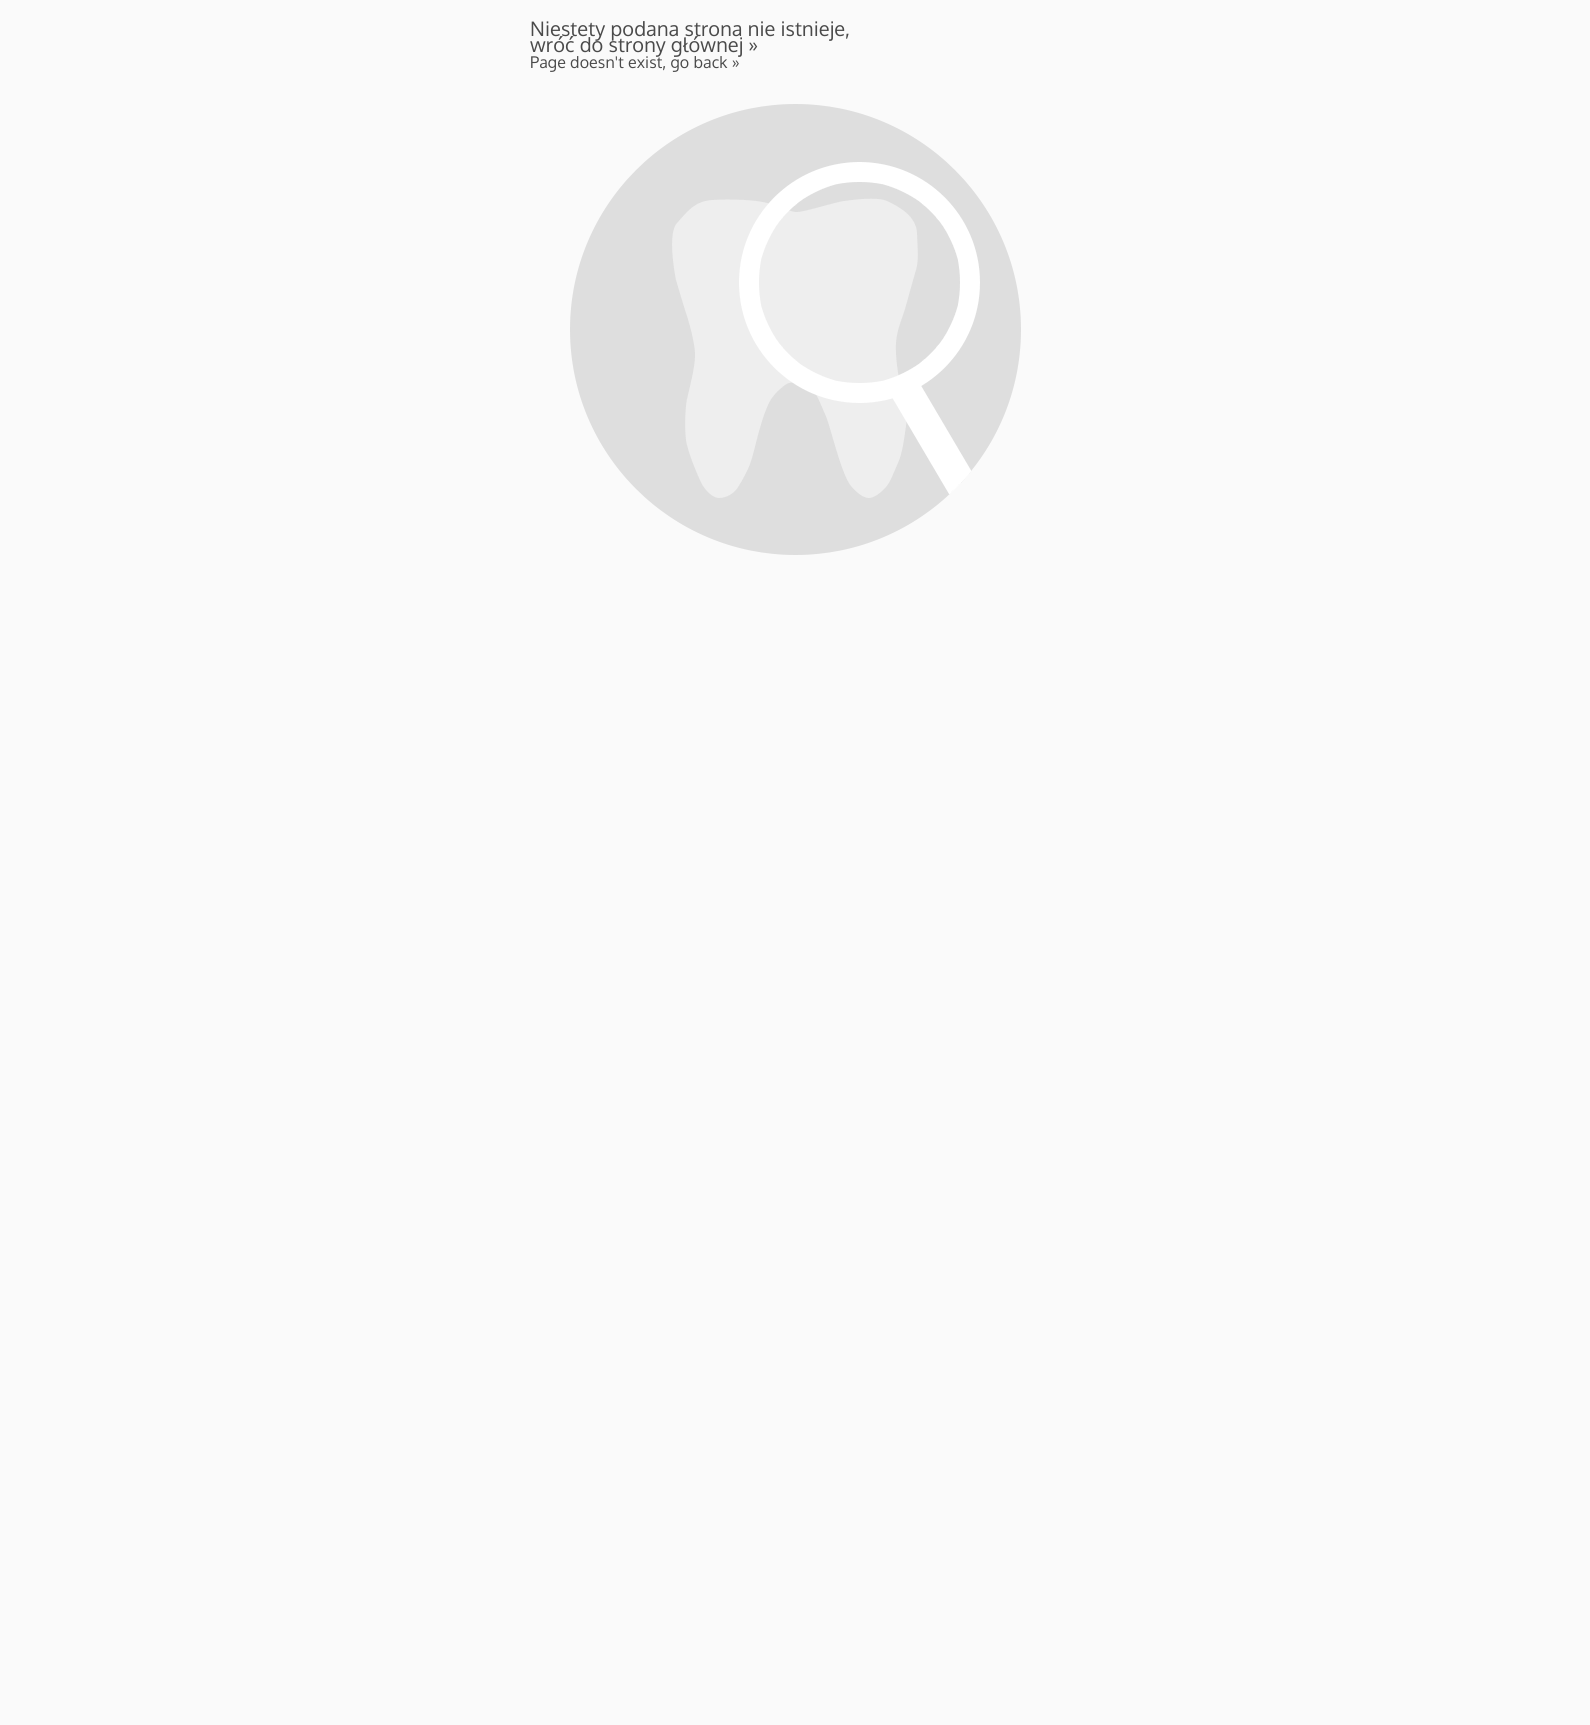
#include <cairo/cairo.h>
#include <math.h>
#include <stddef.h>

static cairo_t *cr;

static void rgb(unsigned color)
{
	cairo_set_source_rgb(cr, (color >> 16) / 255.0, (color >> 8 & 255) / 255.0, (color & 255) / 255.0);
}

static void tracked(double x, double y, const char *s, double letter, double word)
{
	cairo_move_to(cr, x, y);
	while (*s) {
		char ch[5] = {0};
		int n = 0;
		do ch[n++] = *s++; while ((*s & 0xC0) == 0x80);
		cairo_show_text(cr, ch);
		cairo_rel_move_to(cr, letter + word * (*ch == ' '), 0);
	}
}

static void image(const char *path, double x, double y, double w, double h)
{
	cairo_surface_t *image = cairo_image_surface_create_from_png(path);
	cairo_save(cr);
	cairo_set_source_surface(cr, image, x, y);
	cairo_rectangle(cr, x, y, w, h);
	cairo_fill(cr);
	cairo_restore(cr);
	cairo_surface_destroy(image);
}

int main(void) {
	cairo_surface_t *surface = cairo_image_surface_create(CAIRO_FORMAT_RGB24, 1590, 1725);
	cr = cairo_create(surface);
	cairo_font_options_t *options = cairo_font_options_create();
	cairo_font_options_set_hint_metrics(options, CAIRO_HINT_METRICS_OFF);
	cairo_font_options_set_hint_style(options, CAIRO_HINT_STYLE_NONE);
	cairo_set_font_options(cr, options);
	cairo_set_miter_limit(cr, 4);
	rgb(0xfafafa);
	cairo_paint(cr);
	image("img/1.png", 570, 104, 451, 451);
	cairo_select_font_face(cr, "Oxygen", CAIRO_FONT_SLANT_NORMAL, CAIRO_FONT_WEIGHT_NORMAL);
	cairo_set_font_size(cr, 20);
	rgb(0x4a4a4a);
	tracked(530, 36, "Niestety podana strona nie istnieje,", 0.1, 0);
	tracked(530, 52, "wróć do strony głównej »", 0.1, 0);
	cairo_set_font_size(cr, 16);
	tracked(530, 68, "Page doesn't exist, go back »", 0.1, 0);
	cairo_surface_write_to_png(surface, "page.png");
	cairo_font_options_destroy(options);
	cairo_destroy(cr);
	cairo_surface_destroy(surface);
	return 0;
}
